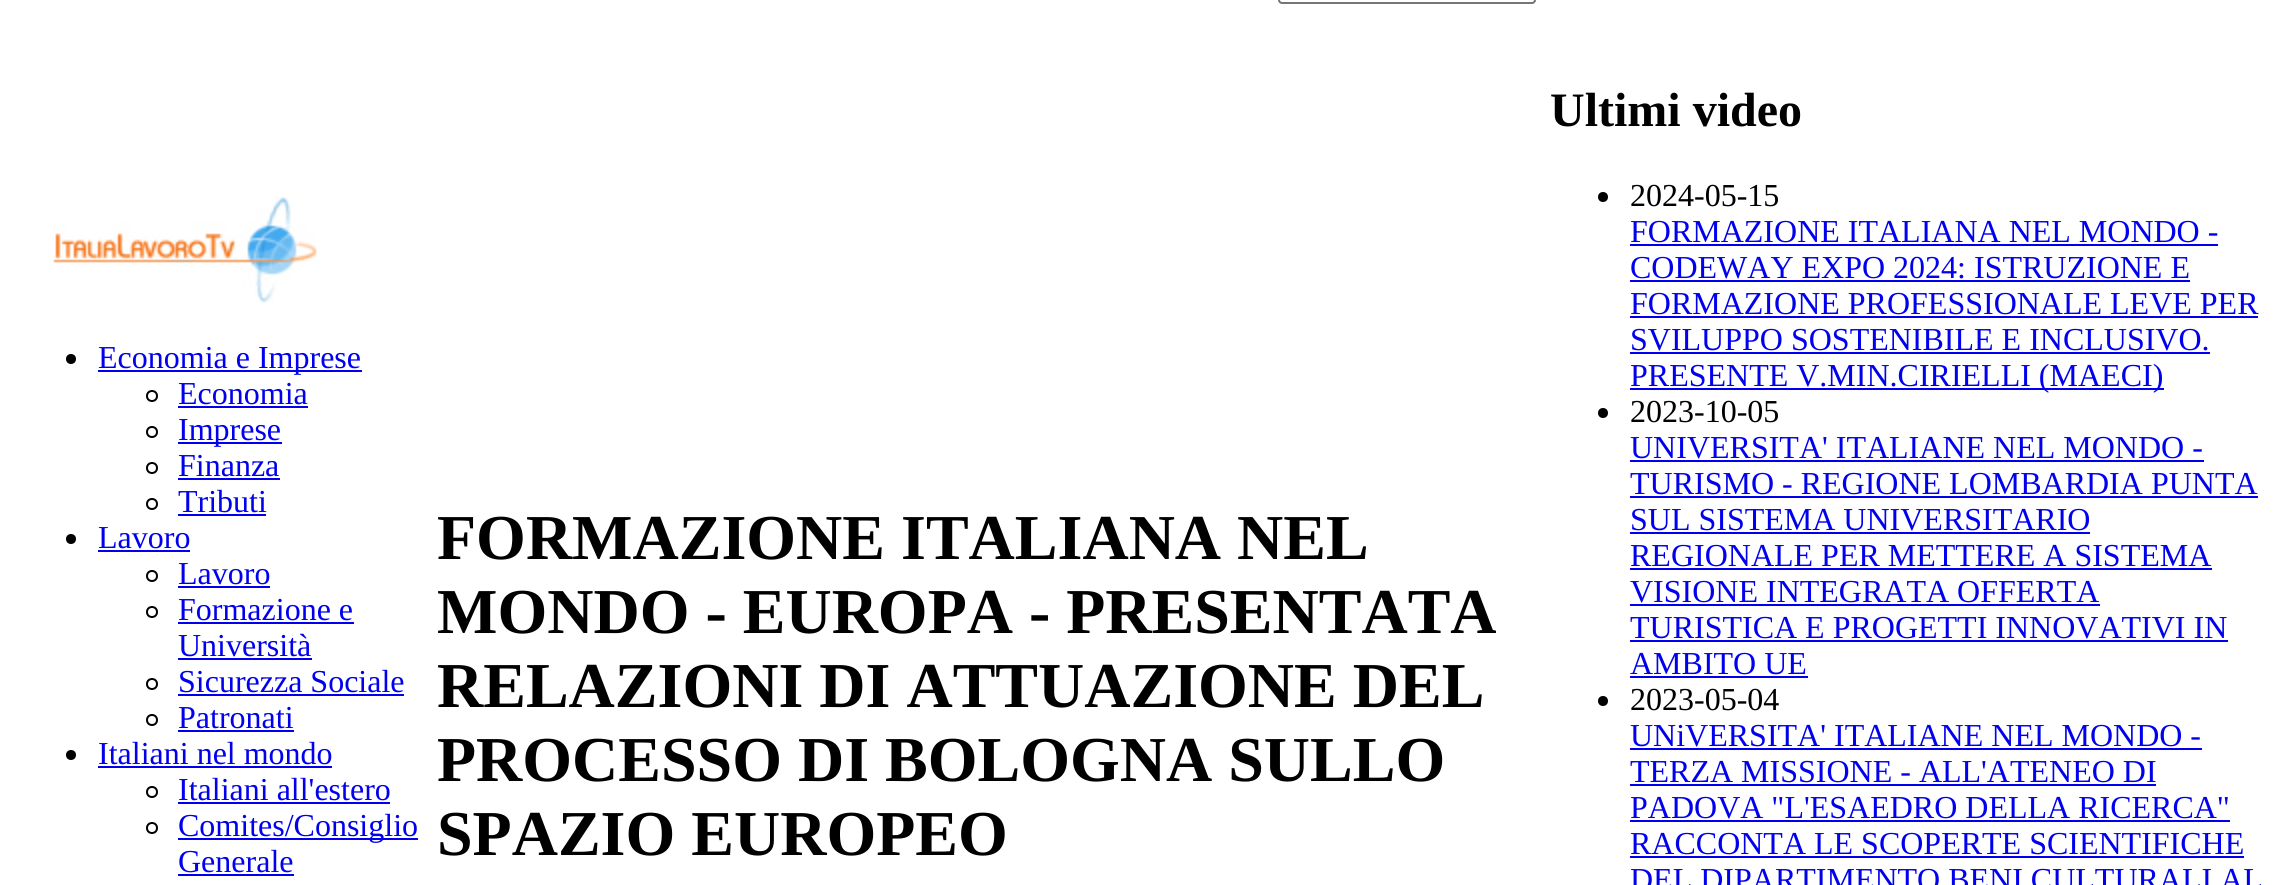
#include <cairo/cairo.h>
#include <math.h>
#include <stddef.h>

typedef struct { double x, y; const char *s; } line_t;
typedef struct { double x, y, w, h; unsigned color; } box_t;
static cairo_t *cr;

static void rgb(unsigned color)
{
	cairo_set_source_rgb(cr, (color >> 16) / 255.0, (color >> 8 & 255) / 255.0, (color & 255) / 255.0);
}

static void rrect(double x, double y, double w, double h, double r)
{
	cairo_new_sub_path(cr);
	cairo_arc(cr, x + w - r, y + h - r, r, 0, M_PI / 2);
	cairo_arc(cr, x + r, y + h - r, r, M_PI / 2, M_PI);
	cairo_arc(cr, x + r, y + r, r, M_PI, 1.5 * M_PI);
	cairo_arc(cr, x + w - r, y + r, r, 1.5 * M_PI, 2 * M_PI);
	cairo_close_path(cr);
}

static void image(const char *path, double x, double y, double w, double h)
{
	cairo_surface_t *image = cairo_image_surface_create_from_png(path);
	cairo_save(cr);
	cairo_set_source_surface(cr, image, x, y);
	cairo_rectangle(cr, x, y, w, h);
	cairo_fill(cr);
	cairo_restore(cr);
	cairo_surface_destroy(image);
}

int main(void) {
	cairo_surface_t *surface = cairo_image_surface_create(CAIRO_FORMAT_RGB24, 2287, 885);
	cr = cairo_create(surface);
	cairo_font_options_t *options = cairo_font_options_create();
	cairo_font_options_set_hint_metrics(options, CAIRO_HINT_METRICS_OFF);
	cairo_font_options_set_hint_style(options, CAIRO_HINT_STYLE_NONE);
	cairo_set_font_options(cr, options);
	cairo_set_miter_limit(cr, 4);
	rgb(0xffffff);
	cairo_paint(cr);
	rrect(1279, -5, 256, 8, 3);
	rgb(0x767676);
	cairo_stroke(cr);
	image("img/1.png", 53, 197, 264, 106);
	rgb(0x000000);
	cairo_arc(cr, 71, 359, 5, 0, 2 * M_PI);
	cairo_fill(cr);
	rgb(0x0000ee);
	cairo_rectangle(cr, 98, 370, 264, 2);
	cairo_fill(cr);
	cairo_arc(cr, 152, 396, 5, 0, 2 * M_PI);
	rgb(0x000000);
	cairo_stroke(cr);
	rgb(0x0000ee);
	cairo_rectangle(cr, 178, 406, 130, 2);
	cairo_fill(cr);
	cairo_arc(cr, 152, 432, 5, 0, 2 * M_PI);
	rgb(0x000000);
	cairo_stroke(cr);
	rgb(0x0000ee);
	cairo_rectangle(cr, 178, 442, 104, 2);
	cairo_fill(cr);
	cairo_arc(cr, 152, 468, 5, 0, 2 * M_PI);
	rgb(0x000000);
	cairo_stroke(cr);
	rgb(0x0000ee);
	cairo_rectangle(cr, 178, 478, 102, 2);
	cairo_fill(cr);
	cairo_arc(cr, 152, 504, 5, 0, 2 * M_PI);
	rgb(0x000000);
	cairo_stroke(cr);
	rgb(0x0000ee);
	cairo_rectangle(cr, 178, 514, 88, 2);
	cairo_fill(cr);
	rgb(0x000000);
	cairo_arc(cr, 71, 539, 5, 0, 2 * M_PI);
	cairo_fill(cr);
	rgb(0x0000ee);
	cairo_rectangle(cr, 98, 550, 92, 2);
	cairo_fill(cr);
	cairo_arc(cr, 152, 576, 5, 0, 2 * M_PI);
	rgb(0x000000);
	cairo_stroke(cr);
	rgb(0x0000ee);
	cairo_rectangle(cr, 178, 586, 92, 2);
	cairo_fill(cr);
	cairo_arc(cr, 152, 612, 5, 0, 2 * M_PI);
	rgb(0x000000);
	cairo_stroke(cr);
	rgb(0x0000ee);
	cairo_rectangle(cr, 178, 622, 176, 2);
	cairo_fill(cr);
	cairo_rectangle(cr, 178, 658, 134, 2);
	cairo_fill(cr);
	cairo_arc(cr, 152, 684, 5, 0, 2 * M_PI);
	rgb(0x000000);
	cairo_stroke(cr);
	rgb(0x0000ee);
	cairo_rectangle(cr, 178, 694, 226, 2);
	cairo_fill(cr);
	cairo_arc(cr, 152, 720, 5, 0, 2 * M_PI);
	rgb(0x000000);
	cairo_stroke(cr);
	rgb(0x0000ee);
	cairo_rectangle(cr, 178, 730, 116, 2);
	cairo_fill(cr);
	rgb(0x000000);
	cairo_arc(cr, 71, 755, 5, 0, 2 * M_PI);
	cairo_fill(cr);
	rgb(0x0000ee);
	cairo_rectangle(cr, 98, 766, 234, 2);
	cairo_fill(cr);
	cairo_arc(cr, 152, 792, 5, 0, 2 * M_PI);
	rgb(0x000000);
	cairo_stroke(cr);
	rgb(0x0000ee);
	cairo_rectangle(cr, 178, 802, 212, 2);
	cairo_fill(cr);
	cairo_arc(cr, 152, 828, 5, 0, 2 * M_PI);
	rgb(0x000000);
	cairo_stroke(cr);
	rgb(0x0000ee);
	cairo_rectangle(cr, 178, 838, 240, 2);
	cairo_fill(cr);
	cairo_rectangle(cr, 178, 874, 116, 2);
	cairo_fill(cr);
	rgb(0x000000);
	cairo_arc(cr, 1603, 197, 5, 0, 2 * M_PI);
	cairo_fill(cr);
	{
		static const box_t items[] = {
			{1630, 244, 588, 2, 0x0000ee},
			{1630, 280, 560, 2, 0x0000ee},
			{1630, 316, 628, 2, 0x0000ee},
			{1630, 352, 580, 2, 0x0000ee},
			{1630, 388, 534, 2, 0x0000ee},
		};
		for (size_t i = 0; i < sizeof items / sizeof *items; i++) {
			rgb(items[i].color);
			cairo_rectangle(cr, items[i].x, items[i].y, items[i].w, items[i].h);
			cairo_fill(cr);
		}
	}
	rgb(0x000000);
	cairo_arc(cr, 1603, 413, 5, 0, 2 * M_PI);
	cairo_fill(cr);
	{
		static const box_t items[] = {
			{1630, 460, 574, 2, 0x0000ee},
			{1630, 496, 628, 2, 0x0000ee},
			{1630, 532, 460, 2, 0x0000ee},
			{1630, 568, 582, 2, 0x0000ee},
			{1630, 604, 470, 2, 0x0000ee},
			{1630, 640, 598, 2, 0x0000ee},
			{1630, 676, 178, 2, 0x0000ee},
		};
		for (size_t i = 0; i < sizeof items / sizeof *items; i++) {
			rgb(items[i].color);
			cairo_rectangle(cr, items[i].x, items[i].y, items[i].w, items[i].h);
			cairo_fill(cr);
		}
	}
	rgb(0x000000);
	cairo_arc(cr, 1603, 701, 5, 0, 2 * M_PI);
	cairo_fill(cr);
	{
		static const box_t items[] = {
			{1630, 748, 572, 2, 0x0000ee},
			{1630, 784, 526, 2, 0x0000ee},
			{1630, 820, 600, 2, 0x0000ee},
			{1630, 856, 614, 2, 0x0000ee},
		};
		for (size_t i = 0; i < sizeof items / sizeof *items; i++) {
			rgb(items[i].color);
			cairo_rectangle(cr, items[i].x, items[i].y, items[i].w, items[i].h);
			cairo_fill(cr);
		}
	}
	cairo_select_font_face(cr, "Liberation Serif", CAIRO_FONT_SLANT_NORMAL, CAIRO_FONT_WEIGHT_NORMAL);
	cairo_set_font_size(cr, 32);
	{
		static const line_t items[] = {
			{98, 368, "Economia e Imprese"},
			{178, 404, "Economia"},
			{178, 440, "Imprese"},
			{178, 476, "Finanza"},
			{178, 512, "Tributi"},
			{98, 548, "Lavoro"},
			{178, 584, "Lavoro"},
			{178, 620, "Formazione e"},
			{178, 656, "Università"},
			{178, 692, "Sicurezza Sociale"},
			{178, 728, "Patronati"},
			{98, 764, "Italiani nel mondo"},
			{178, 800, "Italiani all'estero"},
			{178, 836, "Comites/Consiglio"},
			{178, 872, "Generale"},
		};
		for (size_t i = 0; i < sizeof items / sizeof *items; i++) {
			cairo_move_to(cr, items[i].x, items[i].y);
			cairo_show_text(cr, items[i].s);
		}
	}
	cairo_select_font_face(cr, "Liberation Serif", CAIRO_FONT_SLANT_NORMAL, CAIRO_FONT_WEIGHT_BOLD);
	cairo_set_font_size(cr, 64);
	rgb(0x000000);
	{
		static const line_t items[] = {
			{437, 559, "FORMAZIONE ITALIANA NEL"},
			{437, 633, "MONDO - EUROPA - PRESENTATA"},
			{437, 707, "RELAZIONI DI ATTUAZIONE DEL"},
			{437, 781, "PROCESSO DI BOLOGNA SULLO"},
			{437, 855, "SPAZIO EUROPEO"},
		};
		for (size_t i = 0; i < sizeof items / sizeof *items; i++) {
			cairo_move_to(cr, items[i].x, items[i].y);
			cairo_show_text(cr, items[i].s);
		}
	}
	cairo_set_font_size(cr, 48);
	cairo_move_to(cr, 1550, 126);
	cairo_show_text(cr, "Ultimi video");
	cairo_select_font_face(cr, "Liberation Serif", CAIRO_FONT_SLANT_NORMAL, CAIRO_FONT_WEIGHT_NORMAL);
	cairo_set_font_size(cr, 32);
	cairo_move_to(cr, 1630, 206);
	cairo_show_text(cr, "2024-05-15");
	rgb(0x0000ee);
	{
		static const line_t items[] = {
			{1630, 242, "FORMAZIONE ITALIANA NEL MONDO -"},
			{1630, 278, "CODEWAY EXPO 2024: ISTRUZIONE E"},
			{1630, 314, "FORMAZIONE PROFESSIONALE LEVE PER"},
			{1630, 350, "SVILUPPO SOSTENIBILE E INCLUSIVO."},
			{1630, 386, "PRESENTE V.MIN.CIRIELLI (MAECI)"},
		};
		for (size_t i = 0; i < sizeof items / sizeof *items; i++) {
			cairo_move_to(cr, items[i].x, items[i].y);
			cairo_show_text(cr, items[i].s);
		}
	}
	rgb(0x000000);
	cairo_move_to(cr, 1630, 422);
	cairo_show_text(cr, "2023-10-05");
	rgb(0x0000ee);
	{
		static const line_t items[] = {
			{1630, 458, "UNIVERSITA' ITALIANE NEL MONDO -"},
			{1630, 494, "TURISMO - REGIONE LOMBARDIA PUNTA"},
			{1630, 530, "SUL SISTEMA UNIVERSITARIO"},
			{1630, 566, "REGIONALE PER METTERE A SISTEMA"},
			{1630, 602, "VISIONE INTEGRATA OFFERTA"},
			{1630, 638, "TURISTICA E PROGETTI INNOVATIVI IN"},
			{1630, 674, "AMBITO UE"},
		};
		for (size_t i = 0; i < sizeof items / sizeof *items; i++) {
			cairo_move_to(cr, items[i].x, items[i].y);
			cairo_show_text(cr, items[i].s);
		}
	}
	rgb(0x000000);
	cairo_move_to(cr, 1630, 710);
	cairo_show_text(cr, "2023-05-04");
	rgb(0x0000ee);
	{
		static const line_t items[] = {
			{1630, 746, "UNiVERSITA' ITALIANE NEL MONDO -"},
			{1630, 782, "TERZA MISSIONE - ALL'ATENEO DI"},
			{1630, 818, "PADOVA \"L'ESAEDRO DELLA RICERCA\""},
			{1630, 854, "RACCONTA LE SCOPERTE SCIENTIFICHE"},
			{1630, 890, "DEL DIPARTIMENTO BENI CULTURALI AL"},
		};
		for (size_t i = 0; i < sizeof items / sizeof *items; i++) {
			cairo_move_to(cr, items[i].x, items[i].y);
			cairo_show_text(cr, items[i].s);
		}
	}
	cairo_surface_write_to_png(surface, "page.png");
	cairo_font_options_destroy(options);
	cairo_destroy(cr);
	cairo_surface_destroy(surface);
	return 0;
}
